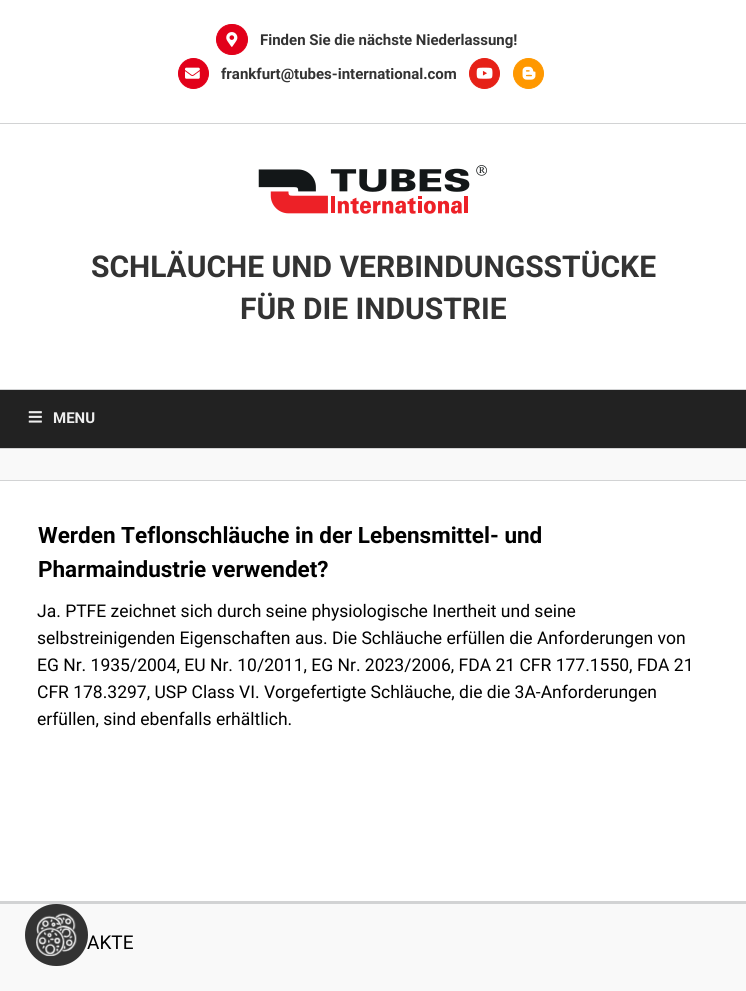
#include <cairo/cairo.h>
#include <math.h>
#include <stddef.h>

typedef struct { double x, y; const char *s; } line_t;
typedef struct { double x, y, w, h; unsigned color; } box_t;
static cairo_t *cr;

static void rgb(unsigned color)
{
	cairo_set_source_rgb(cr, (color >> 16) / 255.0, (color >> 8 & 255) / 255.0, (color & 255) / 255.0);
}

static void rrect(double x, double y, double w, double h, double r)
{
	cairo_new_sub_path(cr);
	cairo_arc(cr, x + w - r, y + h - r, r, 0, M_PI / 2);
	cairo_arc(cr, x + r, y + h - r, r, M_PI / 2, M_PI);
	cairo_arc(cr, x + r, y + r, r, M_PI, 1.5 * M_PI);
	cairo_arc(cr, x + w - r, y + r, r, 1.5 * M_PI, 2 * M_PI);
	cairo_close_path(cr);
}

static void image(const char *path, double x, double y, double w, double h)
{
	cairo_surface_t *image = cairo_image_surface_create_from_png(path);
	cairo_save(cr);
	cairo_set_source_surface(cr, image, x, y);
	cairo_rectangle(cr, x, y, w, h);
	cairo_fill(cr);
	cairo_restore(cr);
	cairo_surface_destroy(image);
}

int main(void) {
	cairo_surface_t *surface = cairo_image_surface_create(CAIRO_FORMAT_RGB24, 746, 991);
	cr = cairo_create(surface);
	cairo_font_options_t *options = cairo_font_options_create();
	cairo_font_options_set_hint_metrics(options, CAIRO_HINT_METRICS_OFF);
	cairo_font_options_set_hint_style(options, CAIRO_HINT_STYLE_NONE);
	cairo_set_font_options(cr, options);
	cairo_set_miter_limit(cr, 4);
	rgb(0xffffff);
	cairo_paint(cr);
	rgb(0xd2d3d4);
	cairo_rectangle(cr, 0, 123, 746, 1);
	cairo_fill(cr);
	rgb(0xe2001a);
	rrect(216.5, 24.5, 31, 30, 15);
	cairo_fill_preserve(cr);
	cairo_set_line_width(cr, 1);
	cairo_stroke(cr);
	image("img/1.png", 226, 32, 12, 15);
	cairo_arc(cr, 193.5, 73.5, 15, 0, 2 * M_PI);
	cairo_fill_preserve(cr);
	cairo_stroke(cr);
	image("img/2.png", 185, 67, 15, 12);
	rgb(0xe62117);
	cairo_arc(cr, 484.5, 73.5, 15, 0, 2 * M_PI);
	cairo_fill_preserve(cr);
	cairo_stroke(cr);
	image("img/3.png", 476, 67, 17, 12);
	rgb(0xff9800);
	cairo_arc(cr, 528.5, 73.5, 15, 0, 2 * M_PI);
	cairo_fill_preserve(cr);
	cairo_stroke(cr);
	image("img/4.png", 522, 66, 14, 14);
	rgb(0xd2d3d4);
	cairo_rectangle(cr, 0, 389, 746, 1);
	cairo_fill(cr);
	image("img/5.png", 258, 165, 229, 49);
	rgb(0x222222);
	cairo_rectangle(cr, 0, 390, 746, 58);
	cairo_fill(cr);
	image("img/6.png", 28, 411, 14, 12);
	{
		static const box_t items[] = {
			{0, 449, 746, 31, 0xf9f9f9},
			{0, 448, 746, 1, 0xd2d3d4},
			{0, 480, 746, 1, 0xd2d3d4},
			{0, 904, 746, 87, 0xf9f9f9},
			{0, 901, 746, 3, 0xd2d3d4},
		};
		for (size_t i = 0; i < sizeof items / sizeof *items; i++) {
			rgb(items[i].color);
			cairo_rectangle(cr, items[i].x, items[i].y, items[i].w, items[i].h);
			cairo_fill(cr);
		}
	}
	cairo_select_font_face(cr, "Roboto", CAIRO_FONT_SLANT_NORMAL, CAIRO_FONT_WEIGHT_BOLD);
	cairo_set_font_size(cr, 15);
	rgb(0x333333);
	cairo_move_to(cr, 260, 45);
	cairo_show_text(cr, "Finden Sie die nächste Niederlassung!");
	cairo_move_to(cr, 221, 79);
	cairo_show_text(cr, "frankfurt@tubes-international.com");
	cairo_set_font_size(cr, 30);
	cairo_move_to(cr, 91, 277);
	cairo_show_text(cr, "SCHLÄUCHE UND VERBINDUNGSSTÜCKE");
	cairo_move_to(cr, 240, 319);
	cairo_show_text(cr, "FÜR DIE INDUSTRIE");
	cairo_set_font_size(cr, 15);
	rgb(0xeeeeee);
	cairo_move_to(cr, 53, 423);
	cairo_show_text(cr, "MENU");
	cairo_set_font_size(cr, 22.5);
	rgb(0x000000);
	cairo_move_to(cr, 38, 543);
	cairo_show_text(cr, "Werden Teflonschläuche in der Lebensmittel- und");
	cairo_move_to(cr, 38, 577);
	cairo_show_text(cr, "Pharmaindustrie verwendet?");
	cairo_select_font_face(cr, "Roboto", CAIRO_FONT_SLANT_NORMAL, CAIRO_FONT_WEIGHT_NORMAL);
	cairo_set_font_size(cr, 17.5);
	{
		static const line_t items[] = {
			{37, 617, "Ja. PTFE zeichnet sich durch seine physiologische Inertheit und seine"},
			{37, 644, "selbstreinigenden Eigenschaften aus. Die Schläuche erfüllen die Anforderungen von"},
			{37, 671, "EG Nr. 1935/2004, EU Nr. 10/2011, EG Nr. 2023/2006, FDA 21 CFR 177.1550, FDA 21"},
			{37, 698, "CFR 178.3297, USP Class VI. Vorgefertigte Schläuche, die die 3A-Anforderungen"},
			{37, 725, "erfüllen, sind ebenfalls erhältlich."},
		};
		for (size_t i = 0; i < sizeof items / sizeof *items; i++) {
			cairo_move_to(cr, items[i].x, items[i].y);
			cairo_show_text(cr, items[i].s);
		}
	}
	cairo_set_font_size(cr, 19);
	cairo_move_to(cr, 87, 949);
	cairo_show_text(cr, "AKTE");
	rgb(0x333333);
	rrect(25, 904, 63, 62, 31);
	cairo_fill(cr);
	image("img/7.png", 36, 913, 41, 44);
	cairo_surface_write_to_png(surface, "page.png");
	cairo_font_options_destroy(options);
	cairo_destroy(cr);
	cairo_surface_destroy(surface);
	return 0;
}
